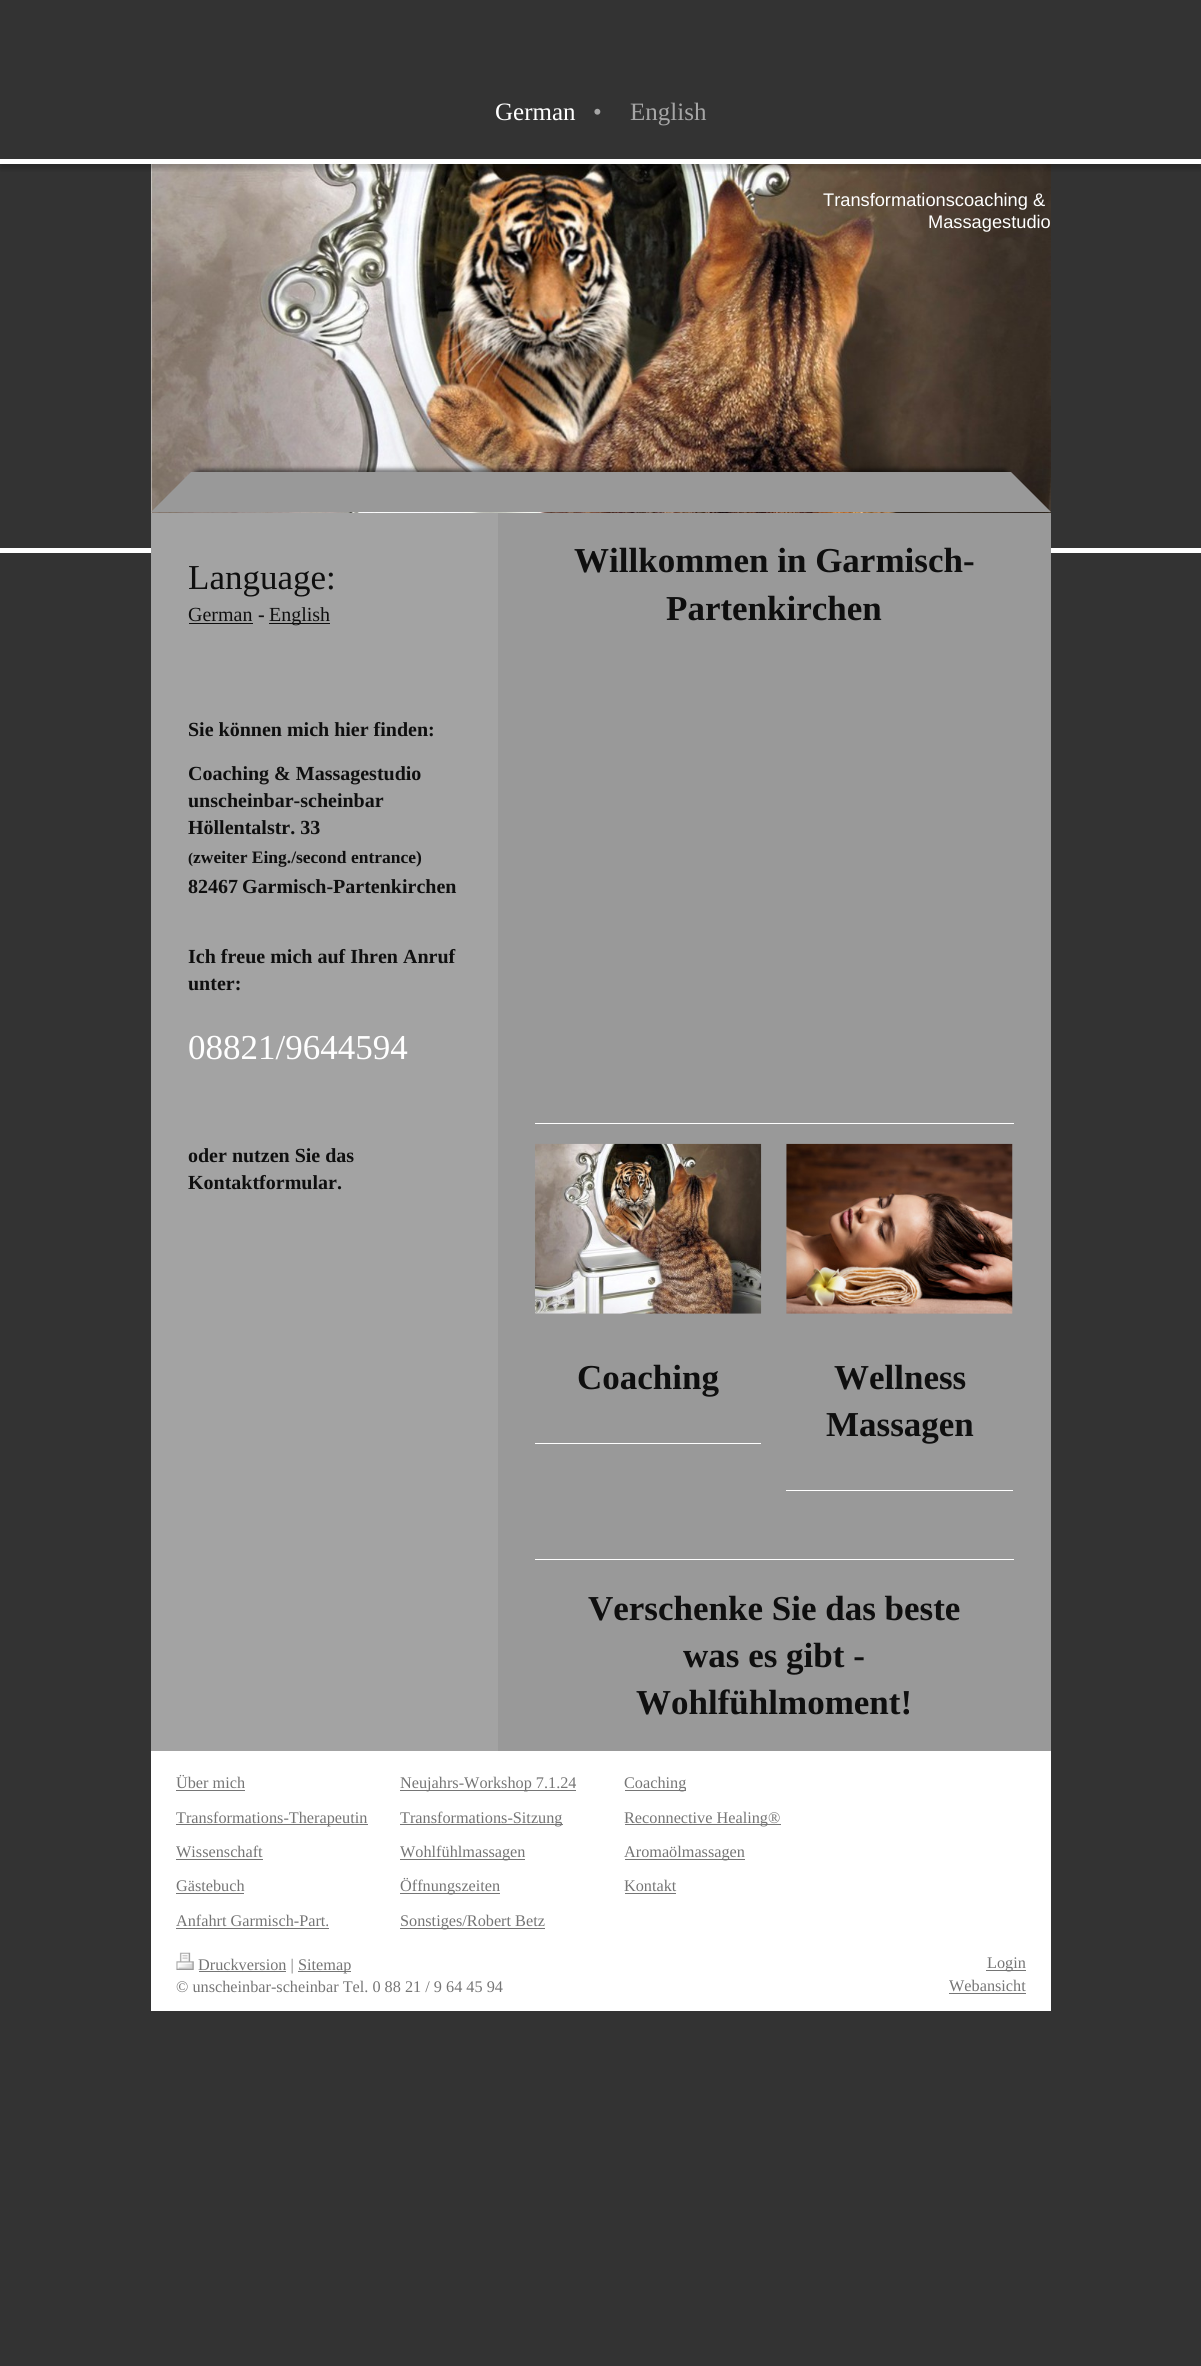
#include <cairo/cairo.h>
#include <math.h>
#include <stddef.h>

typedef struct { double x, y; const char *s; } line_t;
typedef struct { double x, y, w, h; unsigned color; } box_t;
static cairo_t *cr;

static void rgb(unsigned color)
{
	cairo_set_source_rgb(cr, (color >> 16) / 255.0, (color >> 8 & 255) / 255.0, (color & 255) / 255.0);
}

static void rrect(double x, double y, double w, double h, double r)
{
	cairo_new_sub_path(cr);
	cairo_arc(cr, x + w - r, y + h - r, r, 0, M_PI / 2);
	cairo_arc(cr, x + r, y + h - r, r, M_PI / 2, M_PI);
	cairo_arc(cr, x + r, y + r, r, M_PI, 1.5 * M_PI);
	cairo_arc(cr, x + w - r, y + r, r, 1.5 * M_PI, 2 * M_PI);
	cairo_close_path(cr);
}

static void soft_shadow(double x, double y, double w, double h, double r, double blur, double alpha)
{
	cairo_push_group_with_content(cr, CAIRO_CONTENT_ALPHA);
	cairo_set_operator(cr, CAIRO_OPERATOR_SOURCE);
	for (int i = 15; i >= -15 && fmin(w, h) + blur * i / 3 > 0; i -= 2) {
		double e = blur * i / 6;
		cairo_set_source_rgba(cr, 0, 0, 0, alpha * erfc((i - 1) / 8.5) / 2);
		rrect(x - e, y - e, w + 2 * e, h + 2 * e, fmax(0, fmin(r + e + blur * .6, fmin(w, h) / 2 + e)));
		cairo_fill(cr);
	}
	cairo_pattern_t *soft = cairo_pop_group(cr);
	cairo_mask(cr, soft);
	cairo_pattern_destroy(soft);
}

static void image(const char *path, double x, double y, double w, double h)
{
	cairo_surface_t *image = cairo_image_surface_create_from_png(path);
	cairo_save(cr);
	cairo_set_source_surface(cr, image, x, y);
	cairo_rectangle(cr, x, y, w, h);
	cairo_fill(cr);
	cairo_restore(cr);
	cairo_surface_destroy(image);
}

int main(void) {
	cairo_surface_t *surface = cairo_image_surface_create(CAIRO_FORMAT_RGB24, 1201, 2366);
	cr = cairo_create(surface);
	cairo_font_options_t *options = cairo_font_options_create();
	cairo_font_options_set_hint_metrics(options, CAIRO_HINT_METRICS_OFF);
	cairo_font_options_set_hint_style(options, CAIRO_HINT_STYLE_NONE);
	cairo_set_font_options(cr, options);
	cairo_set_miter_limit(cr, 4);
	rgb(0x333333);
	cairo_paint(cr);
	rgb(0xeeeeee);
	cairo_rectangle(cr, 151, 164, 1, 349);
	cairo_fill(cr);
	image("img/1.png", 151, 164, 900, 349);
	cairo_save(cr);
	cairo_rectangle(cr, 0, 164, 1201, 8);
	cairo_clip(cr);
	rgb(0x000000);
	soft_shadow(0, 68, 1201, 101, 0, 2.5, 0.2);
	cairo_restore(cr);
	{
		static const box_t items[] = {
			{0, 159, 1201, 5, 0xffffff},
			{0, 548, 1201, 5, 0xffffff},
			{498, 513, 553, 1238, 0x999999},
		};
		for (size_t i = 0; i < sizeof items / sizeof *items; i++) {
			rgb(items[i].color);
			cairo_rectangle(cr, items[i].x, items[i].y, items[i].w, items[i].h);
			cairo_fill(cr);
		}
	}
	rgb(0x000000);
	soft_shadow(191, 469, 820, 20, 10, 2, 0.5);
	rgb(0x999999);
	cairo_new_path(cr);
	cairo_move_to(cr, 1051, 512);
	cairo_line_to(cr, 151, 512);
	cairo_line_to(cr, 191, 472);
	cairo_line_to(cr, 1011, 472);
	cairo_close_path(cr);
	cairo_fill(cr);
	rgb(0xa3a3a3);
	cairo_rectangle(cr, 151, 513, 347, 1238);
	cairo_fill(cr);
	rgb(0xffffff);
	cairo_rectangle(cr, 535, 1123, 479, 1);
	cairo_fill(cr);
	image("img/2.png", 535, 1143, 227, 171);
	cairo_rectangle(cr, 535, 1443, 226, 1);
	cairo_fill(cr);
	image("img/3.png", 786, 1143, 227, 171);
	{
		static const box_t items[] = {
			{786, 1490, 227, 1, 0xffffff},
			{535, 1559, 479, 1, 0xffffff},
			{189, 623, 64, 1, 0x0f0f0f},
			{269, 623, 61, 1, 0x0f0f0f},
			{151, 1751, 900, 260, 0xffffff},
			{176, 1790, 69, 1, 0x757575},
			{400, 1790, 176, 1, 0x757575},
			{625, 1790, 61, 1, 0x757575},
			{176, 1824, 192, 1, 0x757575},
			{400, 1824, 163, 1, 0x757575},
			{625, 1824, 156, 1, 0x757575},
			{176, 1859, 87, 1, 0x757575},
			{400, 1859, 125, 1, 0x757575},
			{625, 1859, 120, 1, 0x757575},
			{176, 1893, 68, 1, 0x757575},
			{400, 1893, 100, 1, 0x757575},
			{625, 1893, 51, 1, 0x757575},
			{176, 1928, 153, 1, 0x757575},
			{400, 1928, 145, 1, 0x757575},
		};
		for (size_t i = 0; i < sizeof items / sizeof *items; i++) {
			rgb(items[i].color);
			cairo_rectangle(cr, items[i].x, items[i].y, items[i].w, items[i].h);
			cairo_fill(cr);
		}
	}
	image("img/4.png", 176, 1952, 18, 18);
	{
		static const box_t items[] = {
			{199, 1971, 87, 1, 0x757575},
			{298, 1971, 53, 1, 0x757575},
			{986, 1970, 40, 1, 0x757575},
			{949, 1993, 77, 1, 0x757575},
		};
		for (size_t i = 0; i < sizeof items / sizeof *items; i++) {
			rgb(items[i].color);
			cairo_rectangle(cr, items[i].x, items[i].y, items[i].w, items[i].h);
			cairo_fill(cr);
		}
	}
	cairo_select_font_face(cr, "Liberation Serif", CAIRO_FONT_SLANT_NORMAL, CAIRO_FONT_WEIGHT_NORMAL);
	cairo_set_font_size(cr, 25);
	rgb(0xffffff);
	cairo_move_to(cr, 495, 120);
	cairo_show_text(cr, "German");
	rgb(0xa6a6a6);
	cairo_move_to(cr, 593, 120);
	cairo_show_text(cr, "•");
	cairo_move_to(cr, 630, 120);
	cairo_show_text(cr, "English");
	cairo_select_font_face(cr, "Liberation Sans", CAIRO_FONT_SLANT_NORMAL, CAIRO_FONT_WEIGHT_NORMAL);
	cairo_set_font_size(cr, 18.25);
	rgb(0xffffff);
	cairo_move_to(cr, 823, 206);
	cairo_show_text(cr, "Transformationscoaching &");
	cairo_move_to(cr, 928, 228);
	cairo_show_text(cr, "Massagestudio");
	cairo_select_font_face(cr, "Liberation Serif", CAIRO_FONT_SLANT_NORMAL, CAIRO_FONT_WEIGHT_BOLD);
	cairo_set_font_size(cr, 35);
	rgb(0x0f0f0f);
	{
		static const line_t items[] = {
			{574, 572, "Willkommen in Garmisch-"},
			{666, 620, "Partenkirchen"},
			{577, 1389, "Coaching"},
			{834, 1389, "Wellness"},
			{826, 1436, "Massagen"},
			{588, 1620, "Verschenke Sie das beste"},
			{683, 1667, "was es gibt -"},
			{636, 1714, "Wohlfühlmoment!"},
		};
		for (size_t i = 0; i < sizeof items / sizeof *items; i++) {
			cairo_move_to(cr, items[i].x, items[i].y);
			cairo_show_text(cr, items[i].s);
		}
	}
	cairo_select_font_face(cr, "Liberation Serif", CAIRO_FONT_SLANT_NORMAL, CAIRO_FONT_WEIGHT_NORMAL);
	cairo_move_to(cr, 188, 589);
	cairo_show_text(cr, "Language:");
	cairo_set_font_size(cr, 20);
	cairo_move_to(cr, 188, 621);
	cairo_show_text(cr, "German");
	cairo_select_font_face(cr, "Liberation Serif", CAIRO_FONT_SLANT_NORMAL, CAIRO_FONT_WEIGHT_BOLD);
	cairo_move_to(cr, 258, 621);
	cairo_show_text(cr, "-");
	cairo_select_font_face(cr, "Liberation Serif", CAIRO_FONT_SLANT_NORMAL, CAIRO_FONT_WEIGHT_NORMAL);
	cairo_move_to(cr, 269, 621);
	cairo_show_text(cr, "English");
	cairo_select_font_face(cr, "Liberation Serif", CAIRO_FONT_SLANT_NORMAL, CAIRO_FONT_WEIGHT_BOLD);
	{
		static const line_t items[] = {
			{188, 736, "Sie können mich hier finden:"},
			{188, 780, "Coaching & Massagestudio"},
			{188, 807, "unscheinbar-scheinbar"},
			{188, 834, "Höllentalstr. 33"},
		};
		for (size_t i = 0; i < sizeof items / sizeof *items; i++) {
			cairo_move_to(cr, items[i].x, items[i].y);
			cairo_show_text(cr, items[i].s);
		}
	}
	cairo_set_font_size(cr, 15);
	cairo_move_to(cr, 188, 863);
	cairo_show_text(cr, "(");
	cairo_set_font_size(cr, 17.5);
	cairo_move_to(cr, 193, 863);
	cairo_show_text(cr, "zweiter Eing./second entrance)");
	cairo_set_font_size(cr, 20);
	{
		static const line_t items[] = {
			{188, 893, "82467"},
			{242, 893, "Garmisch-Partenkirchen"},
			{188, 963, "Ich freue mich auf Ihren Anruf"},
			{188, 990, "unter:"},
		};
		for (size_t i = 0; i < sizeof items / sizeof *items; i++) {
			cairo_move_to(cr, items[i].x, items[i].y);
			cairo_show_text(cr, items[i].s);
		}
	}
	cairo_select_font_face(cr, "Liberation Serif", CAIRO_FONT_SLANT_NORMAL, CAIRO_FONT_WEIGHT_NORMAL);
	cairo_set_font_size(cr, 35);
	rgb(0xffffff);
	cairo_move_to(cr, 188, 1059);
	cairo_show_text(cr, "08821/9644594");
	cairo_select_font_face(cr, "Liberation Serif", CAIRO_FONT_SLANT_NORMAL, CAIRO_FONT_WEIGHT_BOLD);
	cairo_set_font_size(cr, 20);
	rgb(0x0f0f0f);
	cairo_move_to(cr, 188, 1162);
	cairo_show_text(cr, "oder nutzen Sie das");
	cairo_move_to(cr, 188, 1189);
	cairo_show_text(cr, "Kontaktformular.");
	cairo_select_font_face(cr, "Liberation Serif", CAIRO_FONT_SLANT_NORMAL, CAIRO_FONT_WEIGHT_NORMAL);
	cairo_set_font_size(cr, 16.25);
	rgb(0x757575);
	{
		static const line_t items[] = {
			{176, 1788, "Über mich"},
			{400, 1788, "Neujahrs-Workshop 7.1.24"},
			{624, 1788, "Coaching"},
			{176, 1823, "Transformations-Therapeutin"},
			{400, 1823, "Transformations-Sitzung"},
			{624, 1823, "Reconnective Healing®"},
			{176, 1857, "Wissenschaft"},
			{400, 1857, "Wohlfühlmassagen"},
			{624, 1857, "Aromaölmassagen"},
			{176, 1891, "Gästebuch"},
			{400, 1891, "Öffnungszeiten"},
			{624, 1891, "Kontakt"},
			{176, 1926, "Anfahrt Garmisch-Part."},
			{400, 1926, "Sonstiges/Robert Betz"},
			{198, 1970, "Druckversion |"},
			{298, 1970, "Sitemap"},
			{176, 1992, "© unscheinbar-scheinbar Tel. 0 88 21 / 9 64 45 94"},
			{987, 1968, "Login"},
			{949, 1991, "Webansicht"},
		};
		for (size_t i = 0; i < sizeof items / sizeof *items; i++) {
			cairo_move_to(cr, items[i].x, items[i].y);
			cairo_show_text(cr, items[i].s);
		}
	}
	cairo_surface_write_to_png(surface, "page.png");
	cairo_font_options_destroy(options);
	cairo_destroy(cr);
	cairo_surface_destroy(surface);
	return 0;
}
